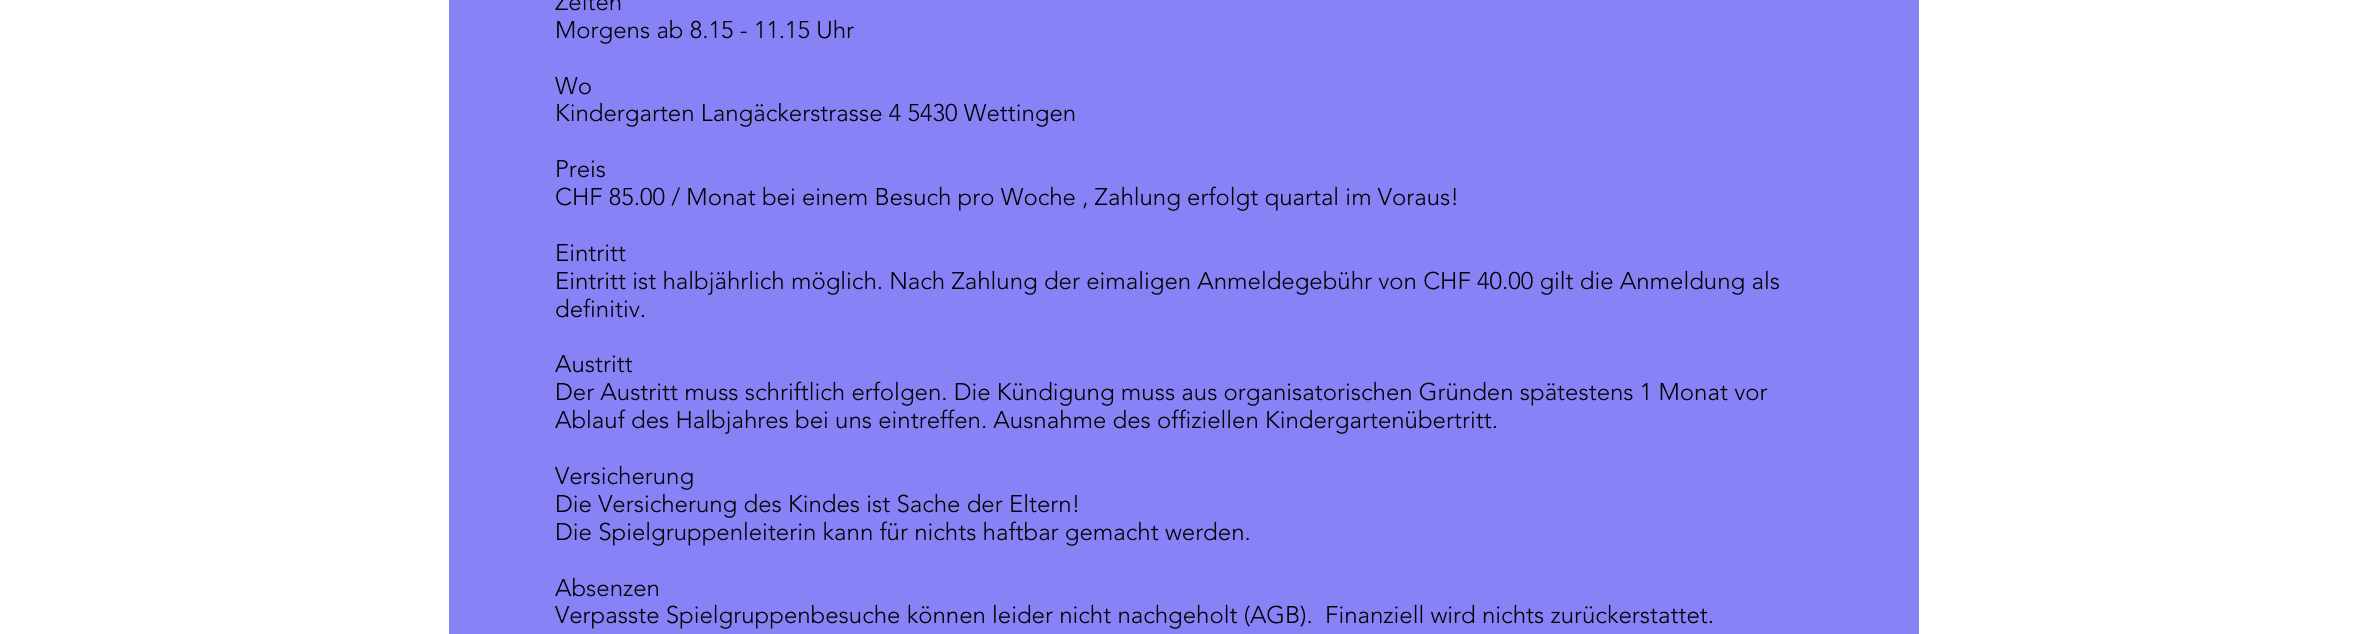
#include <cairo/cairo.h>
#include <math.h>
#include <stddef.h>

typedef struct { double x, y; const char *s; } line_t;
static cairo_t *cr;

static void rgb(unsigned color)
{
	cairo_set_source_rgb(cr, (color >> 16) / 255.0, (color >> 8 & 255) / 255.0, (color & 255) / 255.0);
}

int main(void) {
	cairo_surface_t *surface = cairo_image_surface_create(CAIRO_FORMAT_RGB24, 2366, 634);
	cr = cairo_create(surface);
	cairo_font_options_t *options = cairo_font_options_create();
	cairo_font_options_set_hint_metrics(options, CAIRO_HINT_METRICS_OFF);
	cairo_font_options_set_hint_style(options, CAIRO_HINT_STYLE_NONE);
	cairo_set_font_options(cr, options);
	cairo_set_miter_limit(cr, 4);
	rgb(0xffffff);
	cairo_paint(cr);
	rgb(0x8782f6);
	cairo_rectangle(cr, 449, 0, 1470, 634);
	cairo_fill(cr);
	cairo_select_font_face(cr, "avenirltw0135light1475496 Light", CAIRO_FONT_SLANT_NORMAL, CAIRO_FONT_WEIGHT_NORMAL);
	cairo_set_font_size(cr, 24);
	rgb(0x000000);
	{
		static const line_t items[] = {
			{555, 10, "Zeiten"},
			{555, 38, "Morgens ab 8.15 - 11.15 Uhr"},
			{555, 94, "Wo"},
			{555, 121, "Kindergarten Langäckerstrasse 4 5430 Wettingen"},
			{555, 177, "Preis"},
			{555, 205, "CHF 85.00 / Monat bei einem Besuch pro Woche , Zahlung erfolgt quartal im Voraus!"},
			{555, 261, "Eintritt"},
			{555, 289, "Eintritt ist halbjährlich möglich. Nach Zahlung der eimaligen Anmeldegebühr von CHF 40.00 gilt die Anmeldung als"},
			{555, 317, "definitiv."},
			{555, 372, "Austritt"},
			{555, 400, "Der Austritt muss schriftlich erfolgen. Die Kündigung muss aus organisatorischen Gründen spätestens 1 Monat vor"},
			{555, 428, "Ablauf des Halbjahres bei uns eintreffen. Ausnahme des offiziellen Kindergartenübertritt."},
			{555, 484, "Versicherung"},
			{555, 512, "Die Versicherung des Kindes ist Sache der Eltern!"},
			{555, 540, "Die Spielgruppenleiterin kann für nichts haftbar gemacht werden."},
			{555, 596, "Absenzen"},
			{555, 623, "Verpasste Spielgruppenbesuche können leider nicht nachgeholt (AGB).  Finanziell wird nichts zurückerstattet."},
		};
		for (size_t i = 0; i < sizeof items / sizeof *items; i++) {
			cairo_move_to(cr, items[i].x, items[i].y);
			cairo_show_text(cr, items[i].s);
		}
	}
	cairo_surface_write_to_png(surface, "page.png");
	cairo_font_options_destroy(options);
	cairo_destroy(cr);
	cairo_surface_destroy(surface);
	return 0;
}
